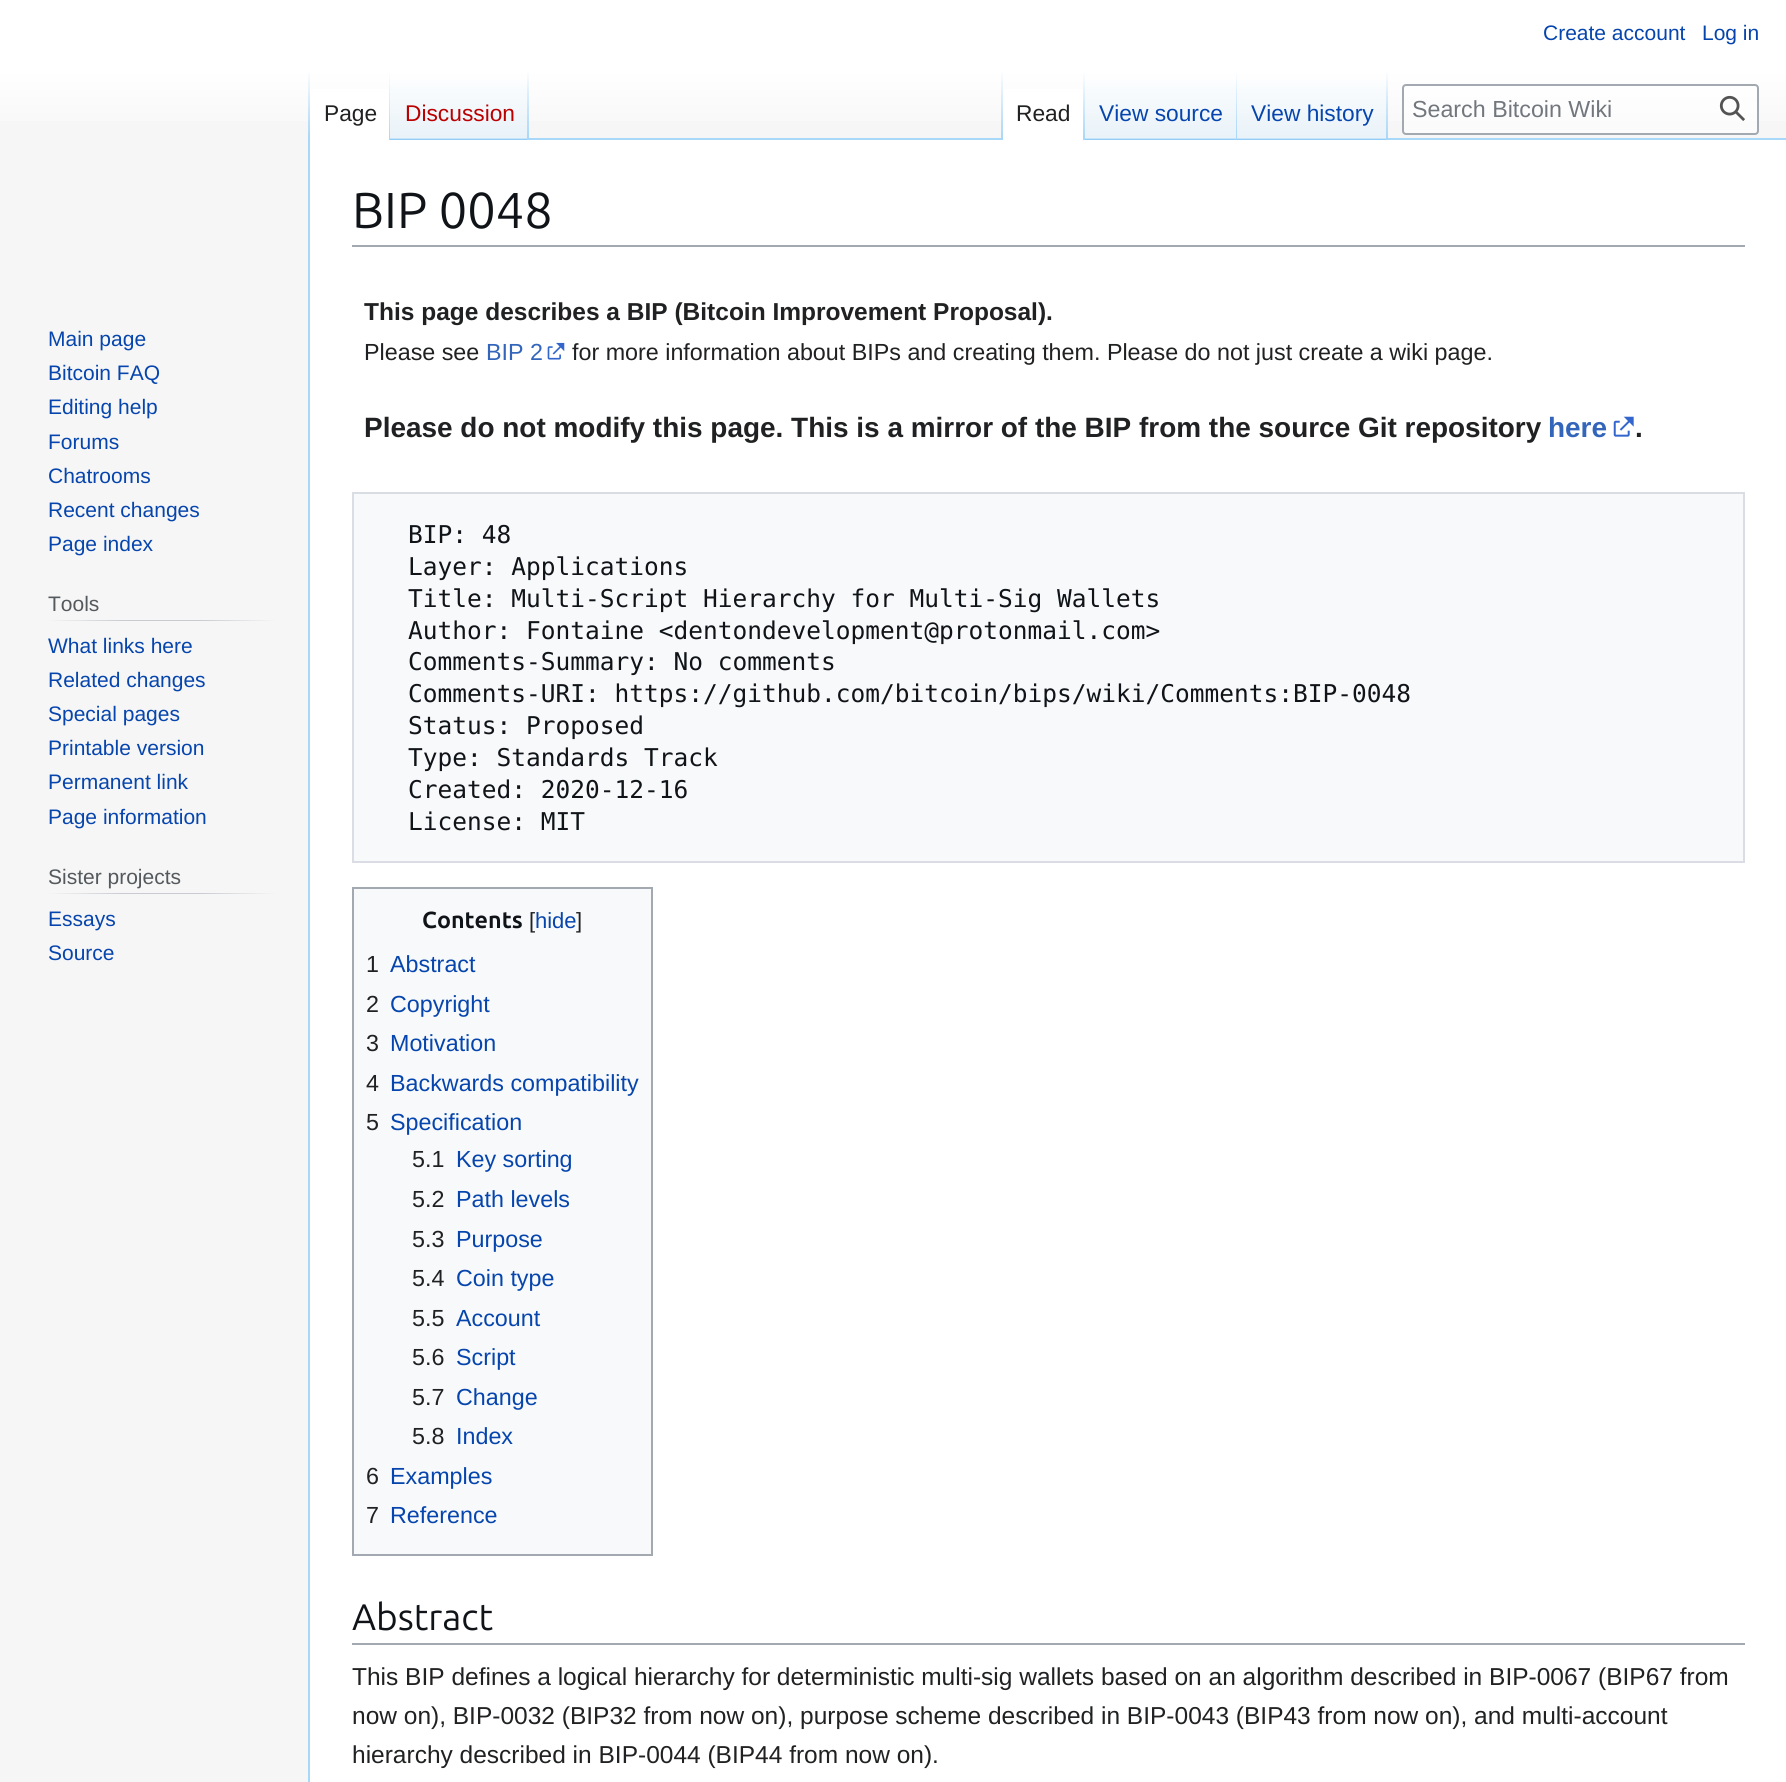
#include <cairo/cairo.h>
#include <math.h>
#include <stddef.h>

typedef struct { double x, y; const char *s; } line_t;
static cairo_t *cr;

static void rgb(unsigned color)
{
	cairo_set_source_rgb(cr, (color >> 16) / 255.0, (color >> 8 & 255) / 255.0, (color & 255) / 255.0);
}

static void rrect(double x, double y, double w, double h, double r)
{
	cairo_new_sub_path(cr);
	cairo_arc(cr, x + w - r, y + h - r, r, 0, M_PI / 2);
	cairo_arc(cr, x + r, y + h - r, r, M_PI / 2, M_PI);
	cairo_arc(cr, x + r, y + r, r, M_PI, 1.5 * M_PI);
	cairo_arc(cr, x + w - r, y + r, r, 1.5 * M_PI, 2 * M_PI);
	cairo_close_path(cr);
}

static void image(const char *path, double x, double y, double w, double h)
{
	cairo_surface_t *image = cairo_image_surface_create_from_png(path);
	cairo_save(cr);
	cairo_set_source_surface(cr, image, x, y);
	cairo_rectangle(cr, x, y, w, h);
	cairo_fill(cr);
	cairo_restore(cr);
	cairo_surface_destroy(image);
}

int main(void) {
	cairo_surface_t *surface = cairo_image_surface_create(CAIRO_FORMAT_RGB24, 1786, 1782);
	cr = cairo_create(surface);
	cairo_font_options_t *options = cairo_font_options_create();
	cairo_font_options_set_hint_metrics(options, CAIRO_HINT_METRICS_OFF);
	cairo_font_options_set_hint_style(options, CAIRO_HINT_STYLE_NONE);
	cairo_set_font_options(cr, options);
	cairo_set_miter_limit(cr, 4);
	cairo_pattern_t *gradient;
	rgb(0xf6f6f6);
	cairo_paint(cr);
	gradient = cairo_pattern_create_linear(893, 0, 893, 140);
	cairo_pattern_add_color_stop_rgba(gradient, 0.5, 1, 1, 1, 1);
	cairo_pattern_add_color_stop_rgba(gradient, 1, 0.965, 0.965, 0.965, 1);
	cairo_set_source(cr, gradient);
	cairo_pattern_destroy(gradient);
	cairo_rectangle(cr, 0, 0, 1786, 121);
	cairo_fill(cr);
	rgb(0xa7d7f9);
	cairo_rectangle(cr, 308, 138, 2, 1644);
	cairo_fill(cr);
	gradient = cairo_pattern_create_linear(309, 70, 309, 140);
	cairo_pattern_add_color_stop_rgba(gradient, 0, 0.655, 0.843, 0.976, 0);
	cairo_pattern_add_color_stop_rgba(gradient, 1, 0.655, 0.843, 0.976, 1);
	cairo_set_source(cr, gradient);
	cairo_pattern_destroy(gradient);
	cairo_rectangle(cr, 308, 70, 2, 70);
	cairo_fill(cr);
	rgb(0xffffff);
	cairo_rectangle(cr, 310, 89, 79, 51);
	cairo_fill(cr);
	gradient = cairo_pattern_create_linear(389, 70, 389, 140);
	cairo_pattern_add_color_stop_rgba(gradient, 0, 1, 1, 1, 1);
	cairo_pattern_add_color_stop_rgba(gradient, 1, 0.655, 0.843, 0.976, 1);
	cairo_set_source(cr, gradient);
	cairo_pattern_destroy(gradient);
	cairo_rectangle(cr, 389, 70, 1, 70);
	cairo_fill(cr);
	gradient = cairo_pattern_create_linear(459, 140, 459, 70);
	cairo_pattern_add_color_stop_rgba(gradient, 0, 0.467, 0.757, 0.965, 1);
	cairo_pattern_add_color_stop_rgba(gradient, 0.03, 0.91, 0.949, 0.973, 1);
	cairo_pattern_add_color_stop_rgba(gradient, 1, 1, 1, 1, 1);
	cairo_set_source(cr, gradient);
	cairo_pattern_destroy(gradient);
	cairo_rectangle(cr, 390, 80, 139, 60);
	cairo_fill(cr);
	gradient = cairo_pattern_create_linear(528, 70, 528, 140);
	cairo_pattern_add_color_stop_rgba(gradient, 0, 0.655, 0.843, 0.976, 0);
	cairo_pattern_add_color_stop_rgba(gradient, 1, 0.655, 0.843, 0.976, 1);
	cairo_set_source(cr, gradient);
	cairo_pattern_destroy(gradient);
	cairo_rectangle(cr, 527, 70, 2, 70);
	cairo_fill(cr);
	rgb(0xa7d7f9);
	cairo_rectangle(cr, 529, 138, 1257, 2);
	cairo_fill(cr);
	gradient = cairo_pattern_create_linear(1002, 70, 1002, 140);
	cairo_pattern_add_color_stop_rgba(gradient, 0, 0.655, 0.843, 0.976, 0);
	cairo_pattern_add_color_stop_rgba(gradient, 1, 0.655, 0.843, 0.976, 1);
	cairo_set_source(cr, gradient);
	cairo_pattern_destroy(gradient);
	cairo_rectangle(cr, 1001, 70, 2, 70);
	cairo_fill(cr);
	rgb(0xffffff);
	cairo_rectangle(cr, 1003, 89, 80, 51);
	cairo_fill(cr);
	gradient = cairo_pattern_create_linear(1084, 70, 1084, 140);
	cairo_pattern_add_color_stop_rgba(gradient, 0, 1, 1, 1, 1);
	cairo_pattern_add_color_stop_rgba(gradient, 1, 0.655, 0.843, 0.976, 1);
	cairo_set_source(cr, gradient);
	cairo_pattern_destroy(gradient);
	cairo_rectangle(cr, 1083, 70, 2, 70);
	cairo_fill(cr);
	gradient = cairo_pattern_create_linear(1161, 140, 1161, 70);
	cairo_pattern_add_color_stop_rgba(gradient, 0, 0.467, 0.757, 0.965, 1);
	cairo_pattern_add_color_stop_rgba(gradient, 0.03, 0.91, 0.949, 0.973, 1);
	cairo_pattern_add_color_stop_rgba(gradient, 1, 1, 1, 1, 1);
	cairo_set_source(cr, gradient);
	cairo_pattern_destroy(gradient);
	cairo_rectangle(cr, 1085, 80, 152, 60);
	cairo_fill(cr);
	gradient = cairo_pattern_create_linear(1236, 70, 1236, 140);
	cairo_pattern_add_color_stop_rgba(gradient, 0, 0.655, 0.843, 0.976, 0);
	cairo_pattern_add_color_stop_rgba(gradient, 1, 0.655, 0.843, 0.976, 1);
	cairo_set_source(cr, gradient);
	cairo_pattern_destroy(gradient);
	cairo_rectangle(cr, 1236, 70, 1, 70);
	cairo_fill(cr);
	gradient = cairo_pattern_create_linear(1313, 140, 1313, 70);
	cairo_pattern_add_color_stop_rgba(gradient, 0, 0.467, 0.757, 0.965, 1);
	cairo_pattern_add_color_stop_rgba(gradient, 0.03, 0.91, 0.949, 0.973, 1);
	cairo_pattern_add_color_stop_rgba(gradient, 1, 1, 1, 1, 1);
	cairo_set_source(cr, gradient);
	cairo_pattern_destroy(gradient);
	cairo_rectangle(cr, 1237, 80, 151, 60);
	cairo_fill(cr);
	gradient = cairo_pattern_create_linear(1387, 70, 1387, 140);
	cairo_pattern_add_color_stop_rgba(gradient, 0, 0.655, 0.843, 0.976, 0);
	cairo_pattern_add_color_stop_rgba(gradient, 1, 0.655, 0.843, 0.976, 1);
	cairo_set_source(cr, gradient);
	cairo_pattern_destroy(gradient);
	cairo_rectangle(cr, 1386, 70, 2, 70);
	cairo_fill(cr);
	cairo_set_source_rgba(cr, 1, 1, 1, 0.5);
	rrect(1403, 85, 355, 49, 3);
	cairo_fill_preserve(cr);
	rgb(0xa2a9b1);
	cairo_stroke(cr);
	image("img/1.png", 1719, 95, 26, 26);
	gradient = cairo_pattern_create_linear(47, 620, 277, 620);
	cairo_pattern_add_color_stop_rgba(gradient, 0, 0.965, 0.965, 0.965, 1);
	cairo_pattern_add_color_stop_rgba(gradient, 0.33, 0.784, 0.8, 0.82, 1);
	cairo_pattern_add_color_stop_rgba(gradient, 0.66, 0.784, 0.8, 0.82, 1);
	cairo_pattern_add_color_stop_rgba(gradient, 1, 0.965, 0.965, 0.965, 1);
	cairo_set_source(cr, gradient);
	cairo_pattern_destroy(gradient);
	cairo_rectangle(cr, 47, 620, 230, 1);
	cairo_fill(cr);
	gradient = cairo_pattern_create_linear(47, 893, 277, 893);
	cairo_pattern_add_color_stop_rgba(gradient, 0, 0.965, 0.965, 0.965, 1);
	cairo_pattern_add_color_stop_rgba(gradient, 0.33, 0.784, 0.8, 0.82, 1);
	cairo_pattern_add_color_stop_rgba(gradient, 0.66, 0.784, 0.8, 0.82, 1);
	cairo_pattern_add_color_stop_rgba(gradient, 1, 0.965, 0.965, 0.965, 1);
	cairo_set_source(cr, gradient);
	cairo_pattern_destroy(gradient);
	cairo_rectangle(cr, 47, 893, 230, 1);
	cairo_fill(cr);
	rgb(0xffffff);
	cairo_rectangle(cr, 310, 140, 1476, 1642);
	cairo_fill(cr);
	rgb(0xa2a9b1);
	cairo_rectangle(cr, 352, 245, 1393, 2);
	cairo_fill(cr);
	image("img/2.png", 547, 342, 18, 18);
	image("img/3.png", 1613, 416, 21, 21);
	rgb(0xf8f9fa);
	cairo_rectangle(cr, 353, 493, 1391, 369);
	cairo_fill_preserve(cr);
	rgb(0xdadde3);
	cairo_stroke(cr);
	rgb(0xf8f9fa);
	cairo_rectangle(cr, 353, 888, 299, 667);
	cairo_fill_preserve(cr);
	rgb(0xa2a9b1);
	cairo_stroke(cr);
	cairo_rectangle(cr, 352, 1643, 1393, 2);
	cairo_fill(cr);
	cairo_select_font_face(cr, "Liberation Sans", CAIRO_FONT_SLANT_NORMAL, CAIRO_FONT_WEIGHT_NORMAL);
	cairo_set_font_size(cr, 21);
	rgb(0x0645ad);
	cairo_move_to(cr, 1543, 40);
	cairo_show_text(cr, "Create account");
	cairo_move_to(cr, 1702, 40);
	cairo_show_text(cr, "Log in");
	cairo_set_font_size(cr, 22.75);
	rgb(0x202122);
	cairo_move_to(cr, 324, 121);
	cairo_show_text(cr, "Page");
	rgb(0xba0000);
	cairo_move_to(cr, 405, 121);
	cairo_show_text(cr, "Discussion");
	rgb(0x202122);
	cairo_move_to(cr, 1016, 121);
	cairo_show_text(cr, "Read");
	rgb(0x0645ad);
	cairo_move_to(cr, 1099, 121);
	cairo_show_text(cr, "View source");
	cairo_move_to(cr, 1251, 121);
	cairo_show_text(cr, "View history");
	cairo_set_font_size(cr, 23.25);
	rgb(0x72777d);
	cairo_move_to(cr, 1412, 117);
	cairo_show_text(cr, "Search Bitcoin Wiki");
	cairo_set_font_size(cr, 21);
	rgb(0x0645ad);
	{
		static const line_t items[] = {
			{48, 346, "Main page"},
			{48, 380, "Bitcoin FAQ"},
			{48, 414, "Editing help"},
			{48, 449, "Forums"},
			{48, 483, "Chatrooms"},
			{48, 517, "Recent changes"},
			{48, 551, "Page index"},
		};
		for (size_t i = 0; i < sizeof items / sizeof *items; i++) {
			cairo_move_to(cr, items[i].x, items[i].y);
			cairo_show_text(cr, items[i].s);
		}
	}
	rgb(0x54595d);
	cairo_move_to(cr, 48, 611);
	cairo_show_text(cr, "Tools");
	rgb(0x0645ad);
	{
		static const line_t items[] = {
			{48, 653, "What links here"},
			{48, 687, "Related changes"},
			{48, 721, "Special pages"},
			{48, 755, "Printable version"},
			{48, 789, "Permanent link"},
			{48, 824, "Page information"},
		};
		for (size_t i = 0; i < sizeof items / sizeof *items; i++) {
			cairo_move_to(cr, items[i].x, items[i].y);
			cairo_show_text(cr, items[i].s);
		}
	}
	rgb(0x54595d);
	cairo_move_to(cr, 48, 884);
	cairo_show_text(cr, "Sister projects");
	rgb(0x0645ad);
	cairo_move_to(cr, 48, 926);
	cairo_show_text(cr, "Essays");
	cairo_move_to(cr, 48, 960);
	cairo_show_text(cr, "Source");
	cairo_select_font_face(cr, "Ubuntu", CAIRO_FONT_SLANT_NORMAL, CAIRO_FONT_WEIGHT_NORMAL);
	cairo_set_font_size(cr, 50.5);
	rgb(0x101418);
	cairo_move_to(cr, 352, 228);
	cairo_show_text(cr, "BIP 0048");
	cairo_select_font_face(cr, "Liberation Sans", CAIRO_FONT_SLANT_NORMAL, CAIRO_FONT_WEIGHT_BOLD);
	cairo_set_font_size(cr, 24.5);
	rgb(0x202122);
	cairo_move_to(cr, 364, 320);
	cairo_show_text(cr, "This page describes a BIP (Bitcoin Improvement Proposal).");
	cairo_select_font_face(cr, "Liberation Sans", CAIRO_FONT_SLANT_NORMAL, CAIRO_FONT_WEIGHT_NORMAL);
	cairo_set_font_size(cr, 23.3);
	cairo_move_to(cr, 364, 360);
	cairo_show_text(cr, "Please see");
	rgb(0x3366bb);
	cairo_move_to(cr, 486, 360);
	cairo_show_text(cr, "BIP 2");
	rgb(0x202122);
	cairo_move_to(cr, 572, 360);
	cairo_show_text(cr, "for more information about BIPs and creating them. Please do not just create a wiki page.");
	cairo_select_font_face(cr, "Liberation Sans", CAIRO_FONT_SLANT_NORMAL, CAIRO_FONT_WEIGHT_BOLD);
	cairo_set_font_size(cr, 27.95);
	cairo_move_to(cr, 364, 437);
	cairo_show_text(cr, "Please do not modify this page. This is a mirror of the BIP from the source Git repository");
	rgb(0x3366bb);
	cairo_move_to(cr, 1548, 437);
	cairo_show_text(cr, "here");
	rgb(0x202122);
	cairo_move_to(cr, 1635, 437);
	cairo_show_text(cr, ".");
	cairo_select_font_face(cr, "DejaVu Sans Mono", CAIRO_FONT_SLANT_NORMAL, CAIRO_FONT_WEIGHT_NORMAL);
	cairo_set_font_size(cr, 24.5);
	rgb(0x101418);
	{
		static const line_t items[] = {
			{408, 543, "BIP: 48"},
			{408, 575, "Layer: Applications"},
			{408, 607, "Title: Multi-Script Hierarchy for Multi-Sig Wallets"},
			{408, 639, "Author: Fontaine <dentondevelopment@protonmail.com>"},
			{408, 670, "Comments-Summary: No comments"},
			{408, 702, "Comments-URI: https://github.com/bitcoin/bips/wiki/Comments:BIP-0048"},
			{408, 734, "Status: Proposed"},
			{408, 766, "Type: Standards Track"},
			{408, 798, "Created: 2020-12-16"},
			{408, 830, "License: MIT"},
		};
		for (size_t i = 0; i < sizeof items / sizeof *items; i++) {
			cairo_move_to(cr, items[i].x, items[i].y);
			cairo_show_text(cr, items[i].s);
		}
	}
	cairo_select_font_face(cr, "Ubuntu", CAIRO_FONT_SLANT_NORMAL, CAIRO_FONT_WEIGHT_BOLD);
	cairo_set_font_size(cr, 23.3);
	cairo_move_to(cr, 422, 928);
	cairo_show_text(cr, "Contents");
	cairo_select_font_face(cr, "Liberation Sans", CAIRO_FONT_SLANT_NORMAL, CAIRO_FONT_WEIGHT_NORMAL);
	cairo_set_font_size(cr, 22);
	rgb(0x202122);
	cairo_move_to(cr, 529, 928);
	cairo_show_text(cr, "[");
	rgb(0x0645ad);
	cairo_move_to(cr, 535, 928);
	cairo_show_text(cr, "hide");
	rgb(0x202122);
	cairo_move_to(cr, 576, 928);
	cairo_show_text(cr, "]");
	cairo_set_font_size(cr, 23.3);
	cairo_move_to(cr, 366, 972);
	cairo_show_text(cr, "1");
	rgb(0x0645ad);
	cairo_move_to(cr, 390, 972);
	cairo_show_text(cr, "Abstract");
	rgb(0x202122);
	cairo_move_to(cr, 366, 1012);
	cairo_show_text(cr, "2");
	rgb(0x0645ad);
	cairo_move_to(cr, 390, 1012);
	cairo_show_text(cr, "Copyright");
	rgb(0x202122);
	cairo_move_to(cr, 366, 1051);
	cairo_show_text(cr, "3");
	rgb(0x0645ad);
	cairo_move_to(cr, 390, 1051);
	cairo_show_text(cr, "Motivation");
	rgb(0x202122);
	cairo_move_to(cr, 366, 1091);
	cairo_show_text(cr, "4");
	rgb(0x0645ad);
	cairo_move_to(cr, 390, 1091);
	cairo_show_text(cr, "Backwards compatibility");
	rgb(0x202122);
	cairo_move_to(cr, 366, 1130);
	cairo_show_text(cr, "5");
	rgb(0x0645ad);
	cairo_move_to(cr, 390, 1130);
	cairo_show_text(cr, "Specification");
	rgb(0x202122);
	cairo_move_to(cr, 412, 1167);
	cairo_show_text(cr, "5.1");
	rgb(0x0645ad);
	cairo_move_to(cr, 456, 1167);
	cairo_show_text(cr, "Key sorting");
	rgb(0x202122);
	cairo_move_to(cr, 412, 1207);
	cairo_show_text(cr, "5.2");
	rgb(0x0645ad);
	cairo_move_to(cr, 456, 1207);
	cairo_show_text(cr, "Path levels");
	rgb(0x202122);
	cairo_move_to(cr, 412, 1247);
	cairo_show_text(cr, "5.3");
	rgb(0x0645ad);
	cairo_move_to(cr, 456, 1247);
	cairo_show_text(cr, "Purpose");
	rgb(0x202122);
	cairo_move_to(cr, 412, 1286);
	cairo_show_text(cr, "5.4");
	rgb(0x0645ad);
	cairo_move_to(cr, 456, 1286);
	cairo_show_text(cr, "Coin type");
	rgb(0x202122);
	cairo_move_to(cr, 412, 1326);
	cairo_show_text(cr, "5.5");
	rgb(0x0645ad);
	cairo_move_to(cr, 456, 1326);
	cairo_show_text(cr, "Account");
	rgb(0x202122);
	cairo_move_to(cr, 412, 1365);
	cairo_show_text(cr, "5.6");
	rgb(0x0645ad);
	cairo_move_to(cr, 456, 1365);
	cairo_show_text(cr, "Script");
	rgb(0x202122);
	cairo_move_to(cr, 412, 1405);
	cairo_show_text(cr, "5.7");
	rgb(0x0645ad);
	cairo_move_to(cr, 456, 1405);
	cairo_show_text(cr, "Change");
	rgb(0x202122);
	cairo_move_to(cr, 412, 1444);
	cairo_show_text(cr, "5.8");
	rgb(0x0645ad);
	cairo_move_to(cr, 456, 1444);
	cairo_show_text(cr, "Index");
	rgb(0x202122);
	cairo_move_to(cr, 366, 1484);
	cairo_show_text(cr, "6");
	rgb(0x0645ad);
	cairo_move_to(cr, 390, 1484);
	cairo_show_text(cr, "Examples");
	rgb(0x202122);
	cairo_move_to(cr, 366, 1523);
	cairo_show_text(cr, "7");
	rgb(0x0645ad);
	cairo_move_to(cr, 390, 1523);
	cairo_show_text(cr, "Reference");
	cairo_select_font_face(cr, "Ubuntu", CAIRO_FONT_SLANT_NORMAL, CAIRO_FONT_WEIGHT_NORMAL);
	cairo_set_font_size(cr, 37);
	rgb(0x101418);
	cairo_move_to(cr, 352, 1630);
	cairo_show_text(cr, "Abstract");
	cairo_select_font_face(cr, "Liberation Sans", CAIRO_FONT_SLANT_NORMAL, CAIRO_FONT_WEIGHT_NORMAL);
	cairo_set_font_size(cr, 24.5);
	rgb(0x202122);
	{
		static const line_t items[] = {
			{352, 1685, "This BIP defines a logical hierarchy for deterministic multi-sig wallets based on an algorithm described in BIP-0067 (BIP67 from"},
			{352, 1724, "now on), BIP-0032 (BIP32 from now on), purpose scheme described in BIP-0043 (BIP43 from now on), and multi-account"},
			{352, 1763, "hierarchy described in BIP-0044 (BIP44 from now on)."},
		};
		for (size_t i = 0; i < sizeof items / sizeof *items; i++) {
			cairo_move_to(cr, items[i].x, items[i].y);
			cairo_show_text(cr, items[i].s);
		}
	}
	cairo_surface_write_to_png(surface, "page.png");
	cairo_font_options_destroy(options);
	cairo_destroy(cr);
	cairo_surface_destroy(surface);
	return 0;
}
